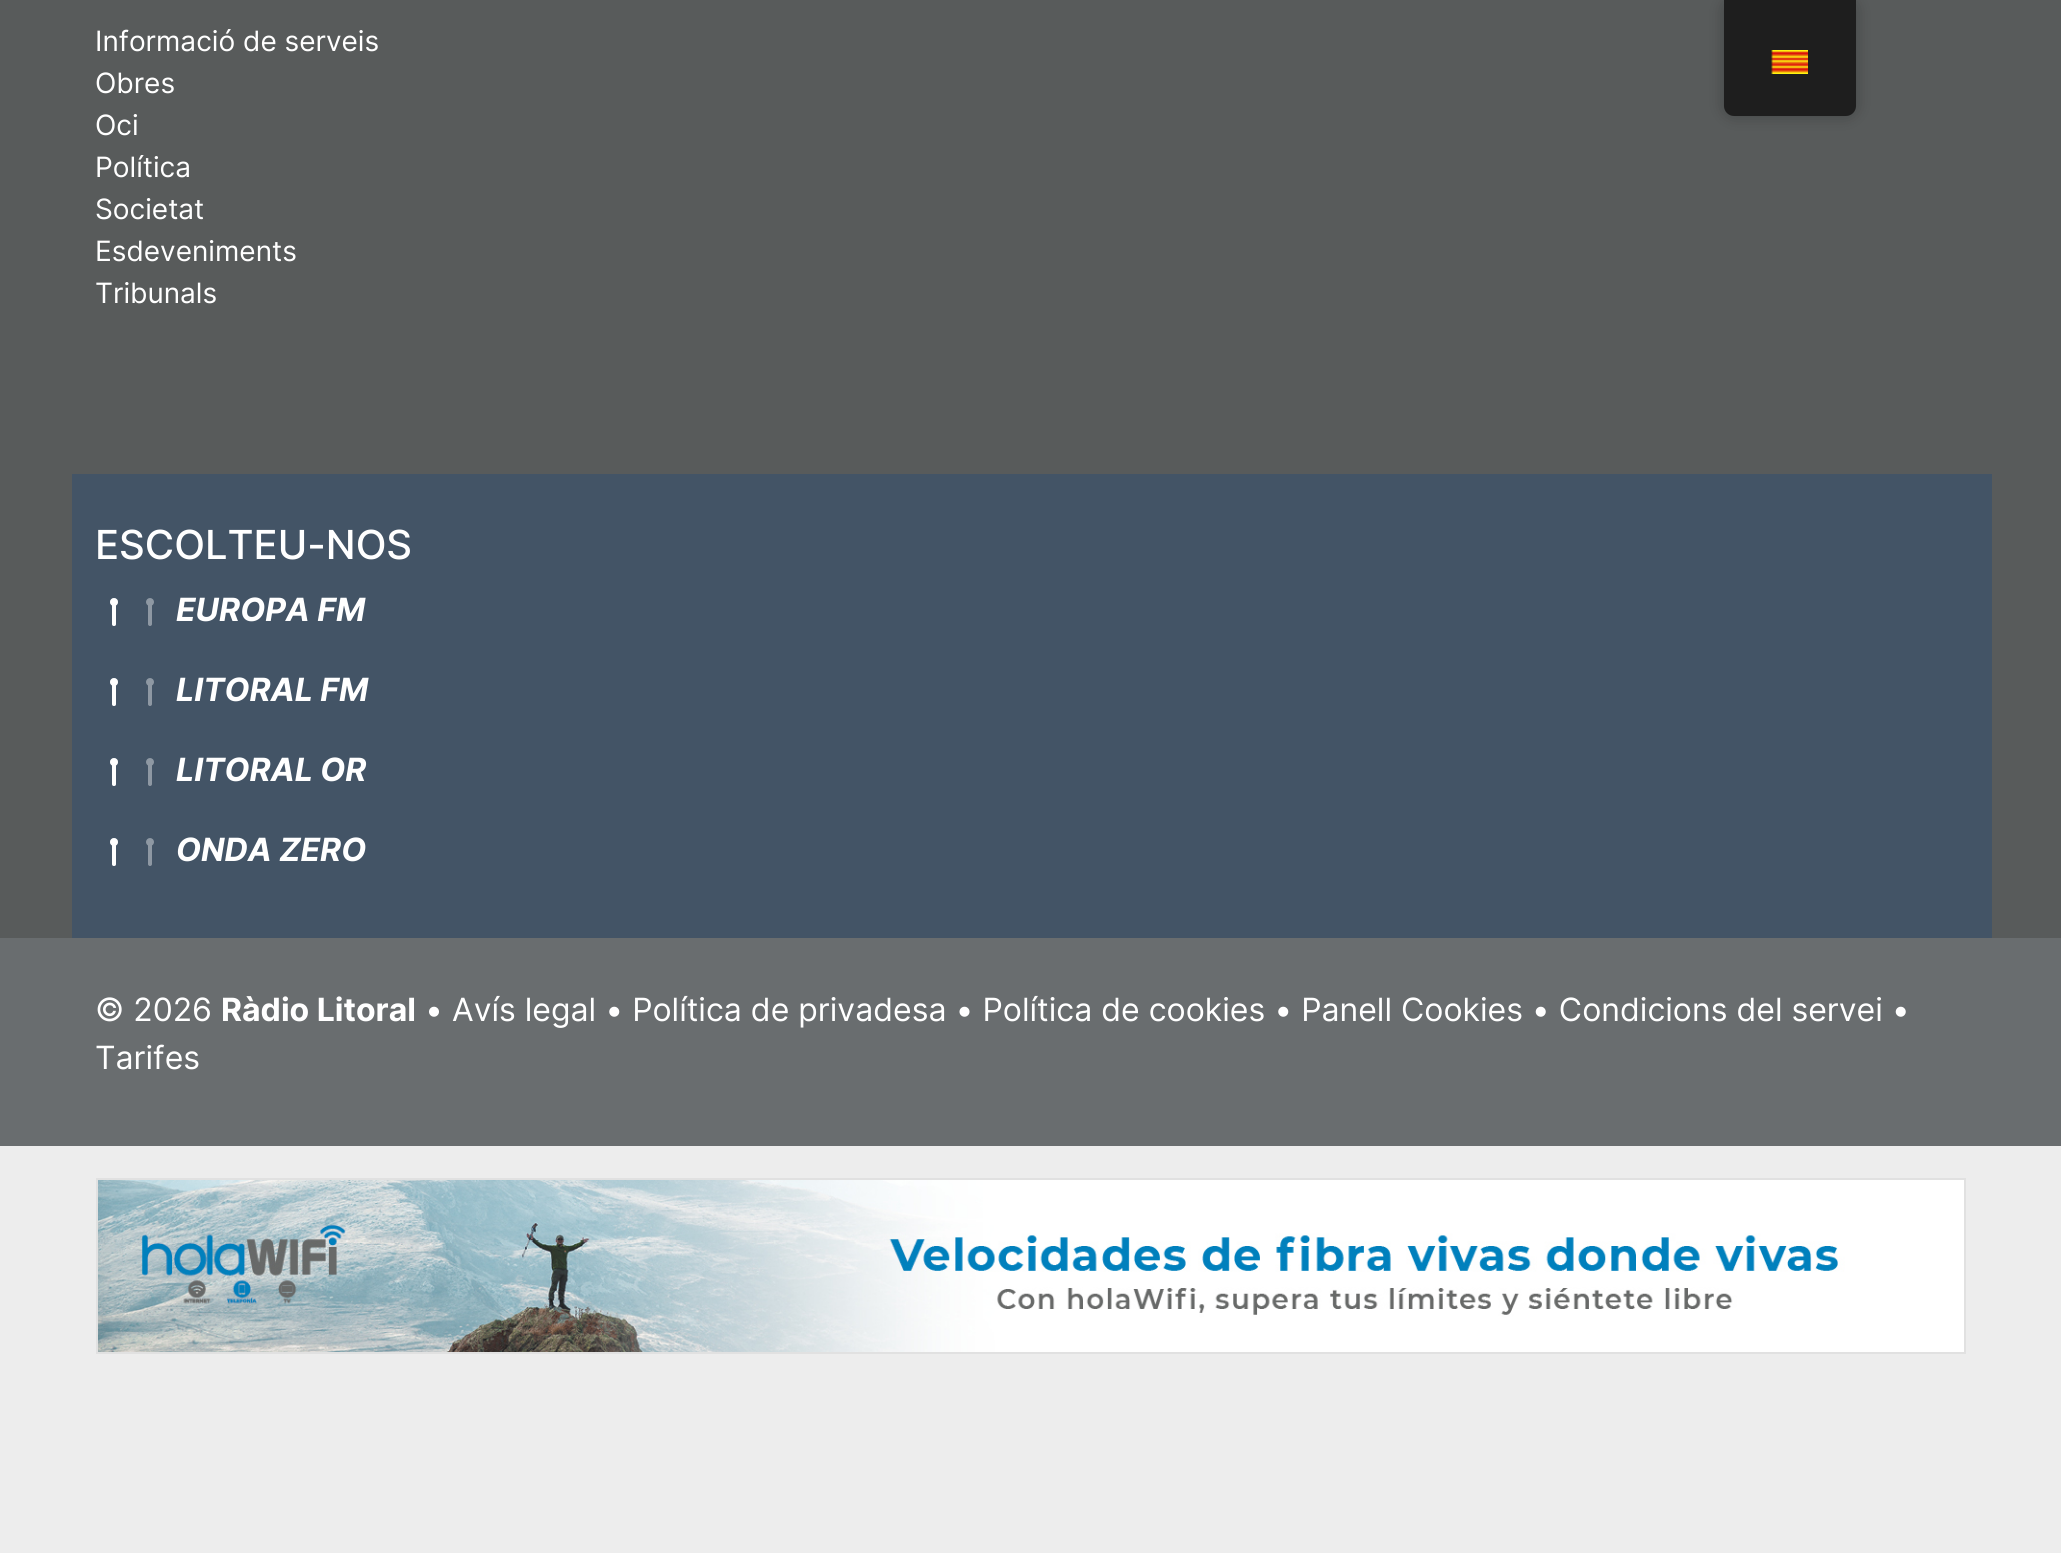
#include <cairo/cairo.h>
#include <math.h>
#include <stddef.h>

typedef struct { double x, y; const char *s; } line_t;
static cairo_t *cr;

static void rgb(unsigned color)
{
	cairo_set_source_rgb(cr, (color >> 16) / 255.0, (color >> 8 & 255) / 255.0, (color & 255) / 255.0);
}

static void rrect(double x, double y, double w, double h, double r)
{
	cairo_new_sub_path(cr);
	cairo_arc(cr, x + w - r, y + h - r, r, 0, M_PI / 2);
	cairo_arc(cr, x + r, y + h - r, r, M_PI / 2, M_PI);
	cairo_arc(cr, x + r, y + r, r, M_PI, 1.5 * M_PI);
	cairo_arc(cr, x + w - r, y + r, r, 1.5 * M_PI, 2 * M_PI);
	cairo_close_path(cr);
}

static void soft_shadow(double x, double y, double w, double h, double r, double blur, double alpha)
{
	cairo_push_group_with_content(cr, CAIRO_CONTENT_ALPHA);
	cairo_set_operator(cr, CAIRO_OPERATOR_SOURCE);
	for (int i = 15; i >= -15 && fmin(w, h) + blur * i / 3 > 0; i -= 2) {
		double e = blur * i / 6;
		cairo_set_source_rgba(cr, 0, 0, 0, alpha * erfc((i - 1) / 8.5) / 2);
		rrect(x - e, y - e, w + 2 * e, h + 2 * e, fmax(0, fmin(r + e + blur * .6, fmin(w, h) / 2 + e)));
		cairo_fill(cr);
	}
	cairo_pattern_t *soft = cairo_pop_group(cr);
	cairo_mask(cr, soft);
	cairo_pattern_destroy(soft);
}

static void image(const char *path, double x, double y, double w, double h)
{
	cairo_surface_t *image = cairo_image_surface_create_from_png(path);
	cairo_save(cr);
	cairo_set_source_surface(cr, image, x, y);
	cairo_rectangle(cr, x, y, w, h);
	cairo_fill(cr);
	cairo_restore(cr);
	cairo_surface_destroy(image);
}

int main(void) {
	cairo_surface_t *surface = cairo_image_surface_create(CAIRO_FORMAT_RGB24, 2061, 1553);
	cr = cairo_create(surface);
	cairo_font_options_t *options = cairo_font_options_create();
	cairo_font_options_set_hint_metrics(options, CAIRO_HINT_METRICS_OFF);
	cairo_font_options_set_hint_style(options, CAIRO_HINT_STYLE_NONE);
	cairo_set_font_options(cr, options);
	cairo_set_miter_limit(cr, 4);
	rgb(0x696d6f);
	cairo_paint(cr);
	rgb(0x585b5b);
	cairo_rectangle(cr, 0, 0, 2061, 938);
	cairo_fill(cr);
	rgb(0x000000);
	soft_shadow(1724, 0, 132, 116, 10, 8, 0.25);
	rgb(0x1e1e1e);
	cairo_new_path(cr);
	cairo_move_to(cr, 1724, 0);
	cairo_line_to(cr, 1856, 0);
	cairo_line_to(cr, 1856, 106);
	cairo_curve_to(cr, 1856, 111.5, 1851.5, 116, 1846, 116);
	cairo_line_to(cr, 1734, 116);
	cairo_curve_to(cr, 1728.5, 116, 1724, 111.5, 1724, 106);
	cairo_close_path(cr);
	cairo_fill(cr);
	image("img/1.png", 1771, 50, 37, 24);
	rgb(0x435466);
	cairo_rectangle(cr, 72, 474, 1920, 464);
	cairo_fill(cr);
	image("img/2.png", 110, 598, 8, 28);
	image("img/3.png", 110, 598, 44, 28);
	image("img/2.png", 110, 678, 8, 28);
	image("img/3.png", 110, 678, 44, 28);
	image("img/2.png", 110, 758, 8, 28);
	image("img/3.png", 110, 758, 44, 28);
	image("img/2.png", 110, 838, 8, 28);
	image("img/3.png", 110, 838, 44, 28);
	rgb(0xededed);
	cairo_rectangle(cr, 0, 1146, 2061, 407);
	cairo_fill(cr);
	cairo_rectangle(cr, 97, 1179, 1868, 174);
	rgb(0xe1e1e1);
	cairo_stroke(cr);
	image("img/4.png", 98, 1180, 1866, 172);
	cairo_select_font_face(cr, "Inter", CAIRO_FONT_SLANT_NORMAL, CAIRO_FONT_WEIGHT_NORMAL);
	cairo_set_font_size(cr, 28);
	rgb(0xffffff);
	{
		static const line_t items[] = {
			{95, 51, "Informació de serveis"},
			{95, 93, "Obres"},
			{95, 135, "Oci"},
			{95, 177, "Política"},
			{95, 219, "Societat"},
			{95, 261, "Esdeveniments"},
			{95, 303, "Tribunals"},
		};
		for (size_t i = 0; i < sizeof items / sizeof *items; i++) {
			cairo_move_to(cr, items[i].x, items[i].y);
			cairo_show_text(cr, items[i].s);
		}
	}
	cairo_select_font_face(cr, "Inter Medium", CAIRO_FONT_SLANT_NORMAL, CAIRO_FONT_WEIGHT_NORMAL);
	cairo_set_font_size(cr, 40);
	cairo_move_to(cr, 95, 559);
	cairo_show_text(cr, "ESCOLTEU-NOS");
	cairo_select_font_face(cr, "Inter", CAIRO_FONT_SLANT_ITALIC, CAIRO_FONT_WEIGHT_BOLD);
	cairo_set_font_size(cr, 32);
	{
		static const line_t items[] = {
			{176, 621, "EUROPA FM"},
			{176, 701, "LITORAL FM"},
			{176, 781, "LITORAL OR"},
			{176, 861, "ONDA ZERO"},
		};
		for (size_t i = 0; i < sizeof items / sizeof *items; i++) {
			cairo_move_to(cr, items[i].x, items[i].y);
			cairo_show_text(cr, items[i].s);
		}
	}
	cairo_select_font_face(cr, "Inter", CAIRO_FONT_SLANT_NORMAL, CAIRO_FONT_WEIGHT_NORMAL);
	cairo_move_to(cr, 95, 1021);
	cairo_show_text(cr, "© 2026");
	cairo_select_font_face(cr, "Inter", CAIRO_FONT_SLANT_NORMAL, CAIRO_FONT_WEIGHT_BOLD);
	cairo_move_to(cr, 221, 1021);
	cairo_show_text(cr, "Ràdio Litoral");
	cairo_select_font_face(cr, "Inter", CAIRO_FONT_SLANT_NORMAL, CAIRO_FONT_WEIGHT_NORMAL);
	cairo_move_to(cr, 425, 1021);
	cairo_show_text(cr, "• Avís legal • Política de privadesa • Política de cookies • Panell Cookies • Condicions del servei •");
	cairo_move_to(cr, 95, 1069);
	cairo_show_text(cr, "Tarifes");
	cairo_surface_write_to_png(surface, "page.png");
	cairo_font_options_destroy(options);
	cairo_destroy(cr);
	cairo_surface_destroy(surface);
	return 0;
}
